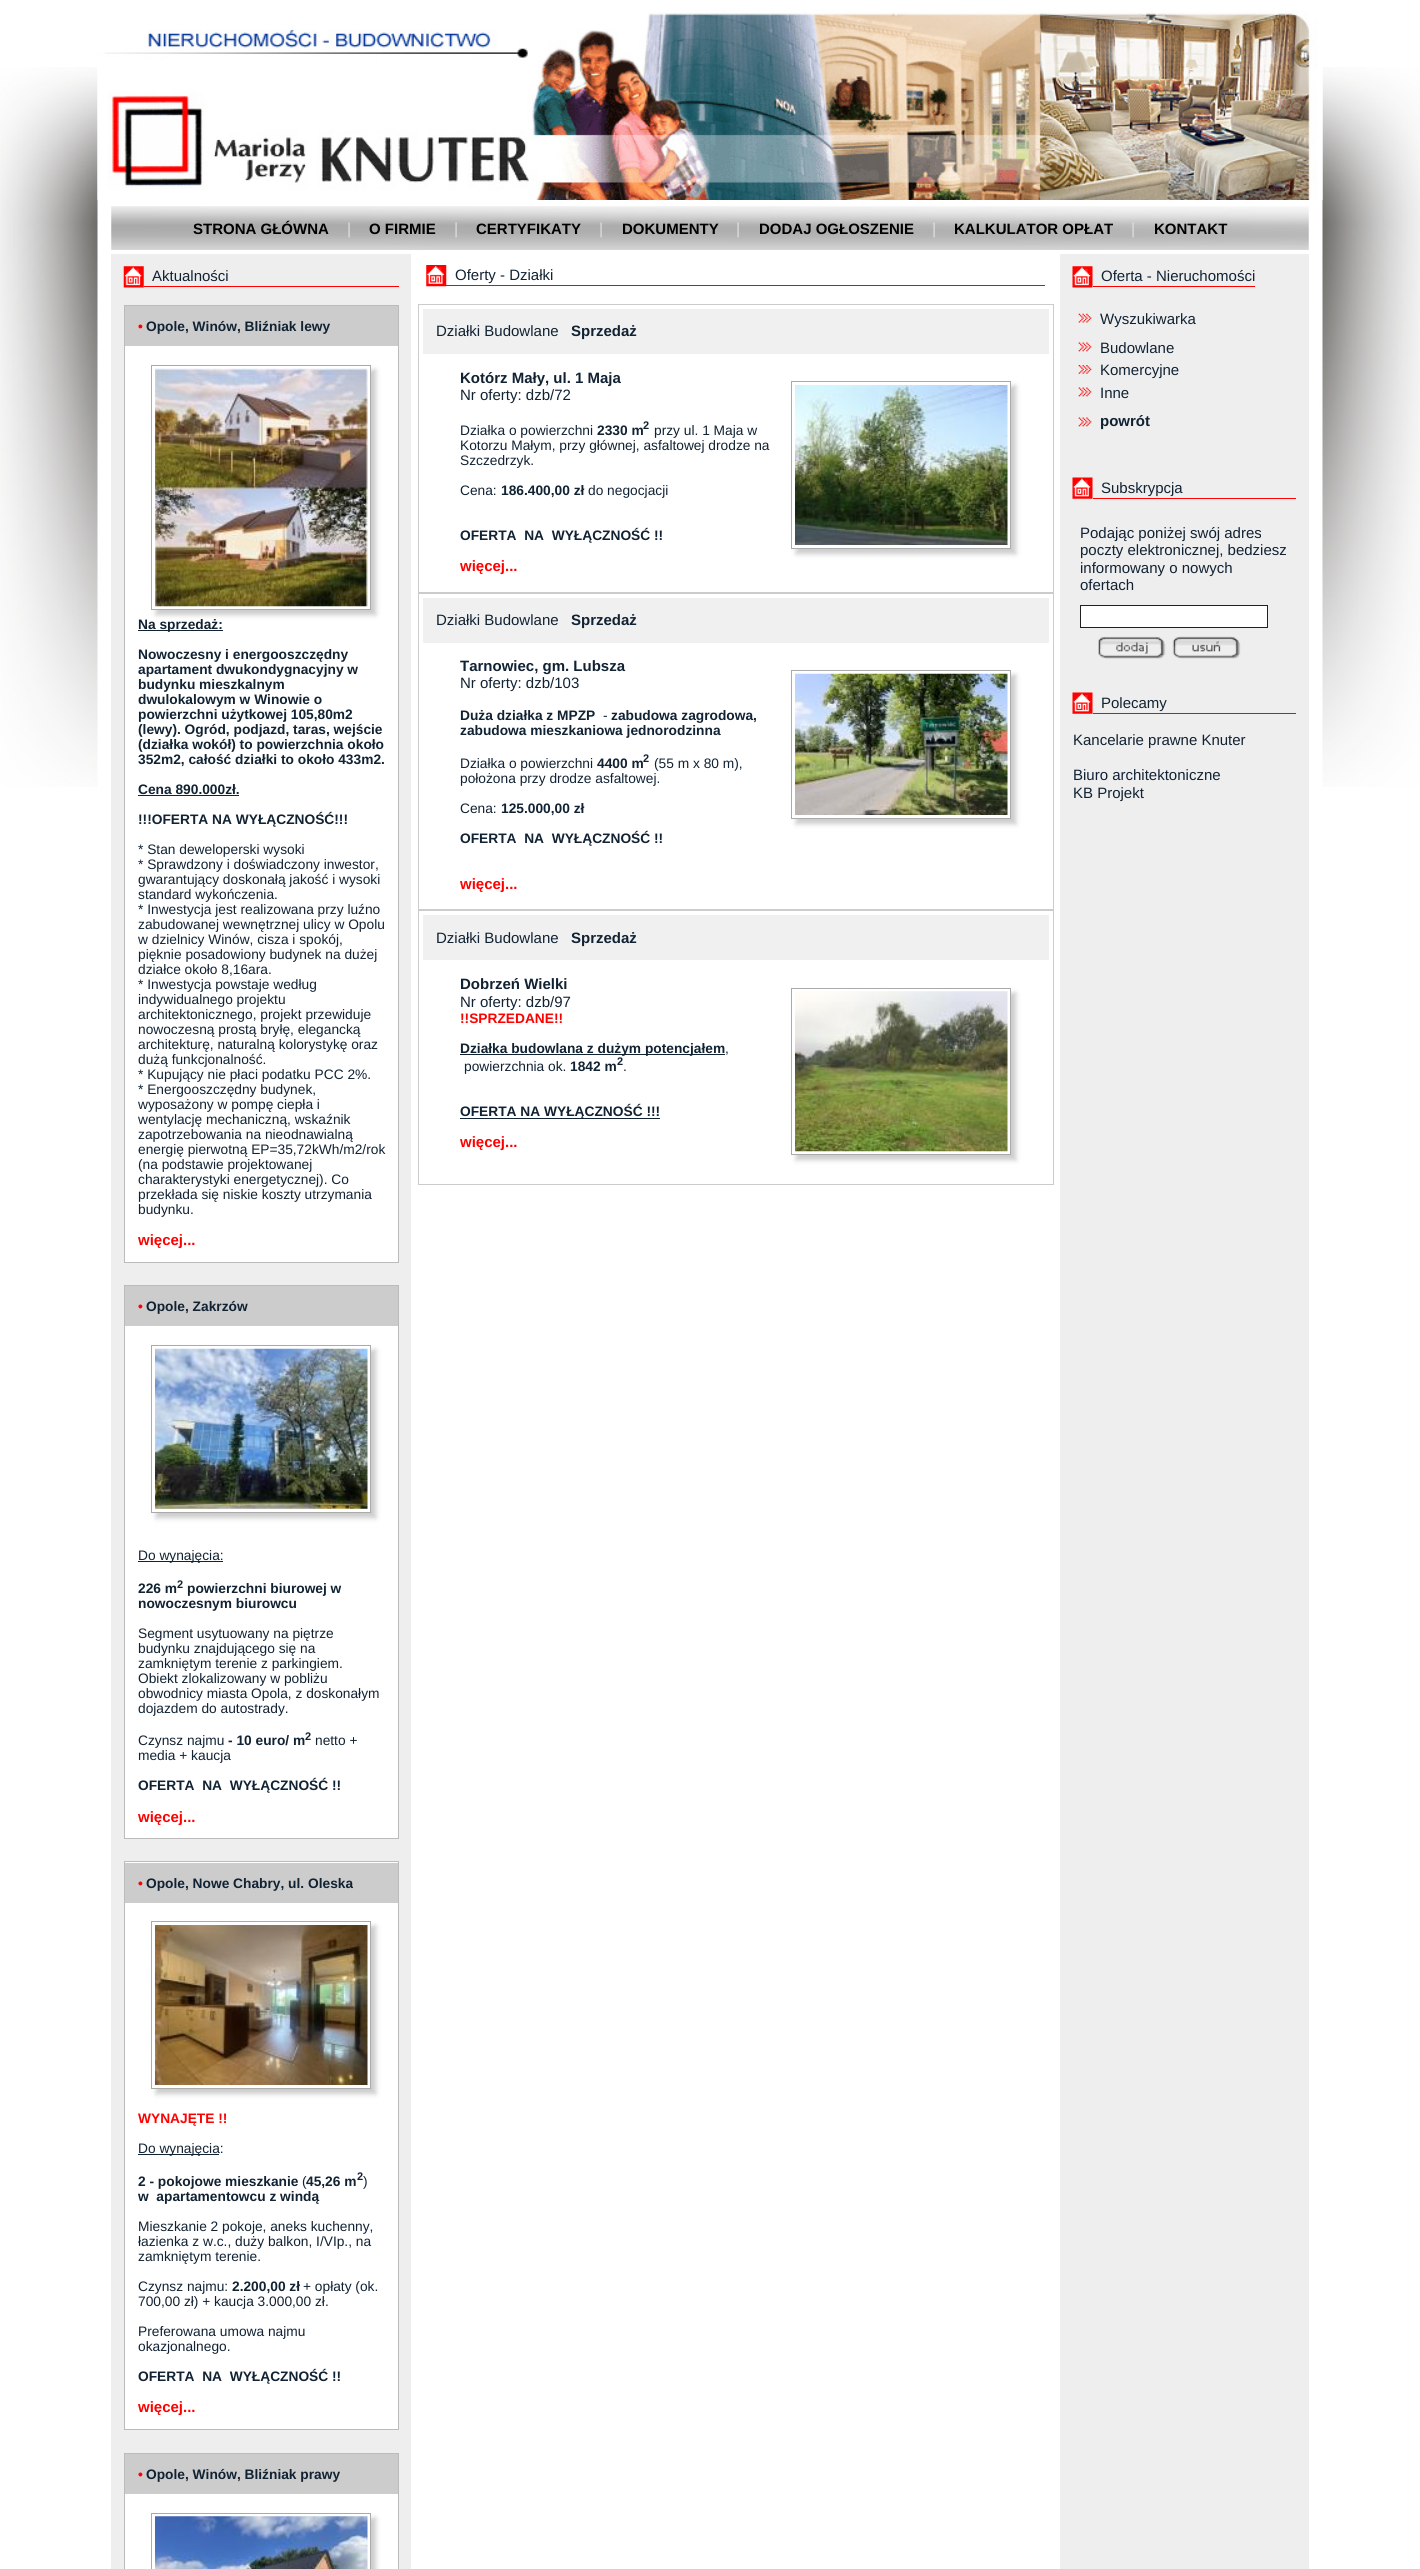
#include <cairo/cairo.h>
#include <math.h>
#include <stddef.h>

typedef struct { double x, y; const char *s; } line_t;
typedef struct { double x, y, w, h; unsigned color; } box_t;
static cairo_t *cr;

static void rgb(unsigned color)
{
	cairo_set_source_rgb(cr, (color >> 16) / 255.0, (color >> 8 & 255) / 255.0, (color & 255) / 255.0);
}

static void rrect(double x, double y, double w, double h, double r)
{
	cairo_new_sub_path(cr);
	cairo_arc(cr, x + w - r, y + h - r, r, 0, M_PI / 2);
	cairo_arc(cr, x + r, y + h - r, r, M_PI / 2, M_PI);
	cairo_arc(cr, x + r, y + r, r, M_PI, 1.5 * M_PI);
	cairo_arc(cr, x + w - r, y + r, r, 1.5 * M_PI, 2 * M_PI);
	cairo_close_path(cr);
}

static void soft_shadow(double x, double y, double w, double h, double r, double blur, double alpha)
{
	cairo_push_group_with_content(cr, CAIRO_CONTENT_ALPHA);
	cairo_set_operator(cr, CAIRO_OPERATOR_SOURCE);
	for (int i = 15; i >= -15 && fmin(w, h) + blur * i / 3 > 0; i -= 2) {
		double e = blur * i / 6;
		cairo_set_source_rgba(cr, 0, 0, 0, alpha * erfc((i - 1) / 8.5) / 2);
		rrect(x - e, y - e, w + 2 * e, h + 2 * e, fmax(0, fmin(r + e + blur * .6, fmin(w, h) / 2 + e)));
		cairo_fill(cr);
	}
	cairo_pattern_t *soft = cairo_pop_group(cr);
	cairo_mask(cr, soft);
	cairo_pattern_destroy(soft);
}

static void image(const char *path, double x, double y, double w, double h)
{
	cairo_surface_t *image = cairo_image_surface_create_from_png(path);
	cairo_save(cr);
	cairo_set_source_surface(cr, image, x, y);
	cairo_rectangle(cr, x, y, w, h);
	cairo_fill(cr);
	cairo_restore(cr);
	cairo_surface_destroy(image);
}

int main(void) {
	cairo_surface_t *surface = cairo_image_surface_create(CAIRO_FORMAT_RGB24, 1420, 2569);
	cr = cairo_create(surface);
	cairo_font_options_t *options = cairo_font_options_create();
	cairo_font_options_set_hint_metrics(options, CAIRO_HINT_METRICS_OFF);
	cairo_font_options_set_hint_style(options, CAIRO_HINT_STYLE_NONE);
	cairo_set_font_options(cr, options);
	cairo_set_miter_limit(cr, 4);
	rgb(0xffffff);
	cairo_paint(cr);
	image("img/1.png", 0, 67, 1420, 720);
	image("img/2.png", 97, 10, 1226, 190);
	image("img/3.png", 111, 206, 1198, 44);
	rgb(0xeeeeee);
	cairo_rectangle(cr, 111, 254, 300, 2315);
	cairo_fill(cr);
	image("img/4.png", 123, 266, 21, 22);
	rgb(0xff0000);
	cairo_rectangle(cr, 144, 286, 255, 1);
	cairo_fill(cr);
	rgb(0xffffff);
	cairo_rectangle(cr, 125, 346, 273, 916);
	cairo_fill(cr);
	cairo_rectangle(cr, 124.5, 305.5, 274, 957);
	rgb(0xbbbbbb);
	cairo_set_line_width(cr, 1);
	cairo_stroke(cr);
	rgb(0xcccccc);
	cairo_rectangle(cr, 125, 306, 273, 40);
	cairo_fill(cr);
	cairo_save(cr);
	cairo_set_fill_rule(cr, CAIRO_FILL_RULE_EVEN_ODD);
	cairo_new_path(cr);
	cairo_move_to(cr, 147, 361);
	cairo_line_to(cr, 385, 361);
	cairo_line_to(cr, 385, 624);
	cairo_line_to(cr, 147, 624);
	cairo_close_path(cr);
	cairo_move_to(cr, 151, 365);
	cairo_line_to(cr, 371, 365);
	cairo_line_to(cr, 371, 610);
	cairo_line_to(cr, 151, 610);
	cairo_close_path(cr);
	cairo_clip(cr);
	rgb(0xcccccc);
	soft_shadow(156, 370, 220, 245, 0, 2.5, 1);
	cairo_restore(cr);
	cairo_rectangle(cr, 151.5, 365.5, 219, 244);
	rgb(0xaaaaaa);
	cairo_stroke(cr);
	image("img/5.png", 155, 368, 213, 239);
	{
		static const box_t items[] = {
			{138, 630, 85, 1, 0x112233},
			{138, 795, 101, 1, 0x112233},
			{125, 1326, 273, 512, 0xffffff},
		};
		for (size_t i = 0; i < sizeof items / sizeof *items; i++) {
			rgb(items[i].color);
			cairo_rectangle(cr, items[i].x, items[i].y, items[i].w, items[i].h);
			cairo_fill(cr);
		}
	}
	cairo_rectangle(cr, 124.5, 1285.5, 274, 553);
	rgb(0xbbbbbb);
	cairo_stroke(cr);
	rgb(0xcccccc);
	cairo_rectangle(cr, 125, 1286, 273, 40);
	cairo_fill(cr);
	cairo_save(cr);
	cairo_set_fill_rule(cr, CAIRO_FILL_RULE_EVEN_ODD);
	cairo_new_path(cr);
	cairo_move_to(cr, 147, 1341);
	cairo_line_to(cr, 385, 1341);
	cairo_line_to(cr, 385, 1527);
	cairo_line_to(cr, 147, 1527);
	cairo_close_path(cr);
	cairo_move_to(cr, 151, 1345);
	cairo_line_to(cr, 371, 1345);
	cairo_line_to(cr, 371, 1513);
	cairo_line_to(cr, 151, 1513);
	cairo_close_path(cr);
	cairo_clip(cr);
	rgb(0xcccccc);
	soft_shadow(156, 1350, 220, 168, 0, 2.5, 1);
	cairo_restore(cr);
	cairo_rectangle(cr, 151.5, 1345.5, 219, 167);
	rgb(0xaaaaaa);
	cairo_stroke(cr);
	image("img/6.png", 155, 1348, 213, 161);
	rgb(0x112233);
	cairo_rectangle(cr, 138, 1561, 85, 1);
	cairo_fill(cr);
	rgb(0xffffff);
	cairo_rectangle(cr, 124.5, 1861.5, 274, 568);
	cairo_fill_preserve(cr);
	rgb(0xbbbbbb);
	cairo_stroke(cr);
	rgb(0xcccccc);
	cairo_rectangle(cr, 125, 1863, 273, 40);
	cairo_fill(cr);
	cairo_save(cr);
	cairo_set_fill_rule(cr, CAIRO_FILL_RULE_EVEN_ODD);
	cairo_new_path(cr);
	cairo_move_to(cr, 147, 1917);
	cairo_line_to(cr, 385, 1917);
	cairo_line_to(cr, 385, 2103);
	cairo_line_to(cr, 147, 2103);
	cairo_close_path(cr);
	cairo_move_to(cr, 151, 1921);
	cairo_line_to(cr, 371, 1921);
	cairo_line_to(cr, 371, 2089);
	cairo_line_to(cr, 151, 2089);
	cairo_close_path(cr);
	cairo_clip(cr);
	rgb(0xcccccc);
	soft_shadow(156, 1926, 220, 168, 0, 2.5, 1);
	cairo_restore(cr);
	cairo_rectangle(cr, 151.5, 1921.5, 219, 167);
	rgb(0xaaaaaa);
	cairo_stroke(cr);
	image("img/7.png", 155, 1925, 213, 160);
	rgb(0x112233);
	cairo_rectangle(cr, 138, 2154, 81, 1);
	cairo_fill(cr);
	rgb(0xffffff);
	cairo_rectangle(cr, 125, 2494, 273, 75);
	cairo_fill(cr);
	cairo_rectangle(cr, 124.5, 2453.5, 274, 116);
	rgb(0xbbbbbb);
	cairo_stroke(cr);
	rgb(0xcccccc);
	cairo_rectangle(cr, 125, 2454, 273, 40);
	cairo_fill(cr);
	cairo_save(cr);
	cairo_rectangle(cr, 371, 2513, 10, 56);
	cairo_clip(cr);
	rgb(0xcccccc);
	soft_shadow(156, 2518, 220, 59, 0, 2.5, 1);
	cairo_restore(cr);
	cairo_rectangle(cr, 151.5, 2513.5, 219, 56);
	rgb(0xaaaaaa);
	cairo_stroke(cr);
	image("img/8.png", 155, 2516, 213, 53);
	rgb(0xff0000);
	cairo_rectangle(cr, 446, 285, 599, 1);
	cairo_fill(cr);
	image("img/9.png", 426, 265, 21, 22);
	cairo_rectangle(cr, 418.5, 304.5, 635, 288);
	rgb(0xcccccc);
	cairo_stroke(cr);
	rgb(0xf0f0f0);
	cairo_rectangle(cr, 423, 309, 626, 45);
	cairo_fill(cr);
	cairo_save(cr);
	cairo_set_fill_rule(cr, CAIRO_FILL_RULE_EVEN_ODD);
	cairo_new_path(cr);
	cairo_move_to(cr, 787, 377);
	cairo_line_to(cr, 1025, 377);
	cairo_line_to(cr, 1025, 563);
	cairo_line_to(cr, 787, 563);
	cairo_close_path(cr);
	cairo_move_to(cr, 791, 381);
	cairo_line_to(cr, 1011, 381);
	cairo_line_to(cr, 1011, 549);
	cairo_line_to(cr, 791, 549);
	cairo_close_path(cr);
	cairo_clip(cr);
	rgb(0xcccccc);
	soft_shadow(796, 386, 220, 168, 0, 2.5, 1);
	cairo_restore(cr);
	cairo_rectangle(cr, 791.5, 381.5, 219, 167);
	rgb(0xaaaaaa);
	cairo_stroke(cr);
	image("img/10.png", 795, 385, 213, 160);
	cairo_rectangle(cr, 418.5, 593.5, 635, 316);
	rgb(0xcccccc);
	cairo_stroke(cr);
	rgb(0xf0f0f0);
	cairo_rectangle(cr, 423, 598, 626, 45);
	cairo_fill(cr);
	cairo_save(cr);
	cairo_set_fill_rule(cr, CAIRO_FILL_RULE_EVEN_ODD);
	cairo_new_path(cr);
	cairo_move_to(cr, 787, 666);
	cairo_line_to(cr, 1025, 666);
	cairo_line_to(cr, 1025, 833);
	cairo_line_to(cr, 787, 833);
	cairo_close_path(cr);
	cairo_move_to(cr, 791, 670);
	cairo_line_to(cr, 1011, 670);
	cairo_line_to(cr, 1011, 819);
	cairo_line_to(cr, 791, 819);
	cairo_close_path(cr);
	cairo_clip(cr);
	rgb(0xcccccc);
	soft_shadow(796, 675, 220, 149, 0, 2.5, 1);
	cairo_restore(cr);
	cairo_rectangle(cr, 791.5, 670.5, 219, 148);
	rgb(0xaaaaaa);
	cairo_stroke(cr);
	image("img/11.png", 795, 673, 213, 142);
	cairo_rectangle(cr, 418.5, 910.5, 635, 274);
	rgb(0xcccccc);
	cairo_stroke(cr);
	rgb(0xf0f0f0);
	cairo_rectangle(cr, 423, 915, 626, 45);
	cairo_fill(cr);
	cairo_save(cr);
	cairo_set_fill_rule(cr, CAIRO_FILL_RULE_EVEN_ODD);
	cairo_new_path(cr);
	cairo_move_to(cr, 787, 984);
	cairo_line_to(cr, 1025, 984);
	cairo_line_to(cr, 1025, 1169);
	cairo_line_to(cr, 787, 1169);
	cairo_close_path(cr);
	cairo_move_to(cr, 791, 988);
	cairo_line_to(cr, 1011, 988);
	cairo_line_to(cr, 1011, 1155);
	cairo_line_to(cr, 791, 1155);
	cairo_close_path(cr);
	cairo_clip(cr);
	rgb(0xcccccc);
	soft_shadow(796, 993, 220, 167, 0, 2.5, 1);
	cairo_restore(cr);
	cairo_rectangle(cr, 791.5, 988.5, 219, 166);
	rgb(0xaaaaaa);
	cairo_stroke(cr);
	image("img/12.png", 795, 991, 213, 161);
	{
		static const box_t items[] = {
			{460, 1054, 265, 1, 0x112233},
			{460, 1118, 200, 1, 0x112233},
			{1060, 254, 249, 2315, 0xeeeeee},
		};
		for (size_t i = 0; i < sizeof items / sizeof *items; i++) {
			rgb(items[i].color);
			cairo_rectangle(cr, items[i].x, items[i].y, items[i].w, items[i].h);
			cairo_fill(cr);
		}
	}
	image("img/13.png", 1072, 266, 21, 22);
	rgb(0xff0000);
	cairo_rectangle(cr, 1093, 286, 162, 1);
	cairo_fill(cr);
	image("img/14.png", 1078, 313, 14, 10);
	image("img/15.png", 1078, 342, 14, 10);
	image("img/16.png", 1078, 365, 14, 9);
	image("img/15.png", 1078, 387, 14, 10);
	image("img/15.png", 1078, 417, 14, 10);
	image("img/17.png", 1072, 477, 21, 22);
	cairo_rectangle(cr, 1093, 498, 203, 1);
	cairo_fill(cr);
	rgb(0xffffff);
	cairo_rectangle(cr, 1080.5, 605.5, 187, 22);
	cairo_fill_preserve(cr);
	rgb(0x202020);
	cairo_stroke(cr);
	image("img/18.png", 1098, 636, 68, 23);
	image("img/19.png", 1172, 636, 69, 23);
	image("img/17.png", 1072, 692, 21, 22);
	rgb(0xff0000);
	cairo_rectangle(cr, 1093, 713, 203, 1);
	cairo_fill(cr);
	cairo_select_font_face(cr, "Liberation Sans", CAIRO_FONT_SLANT_NORMAL, CAIRO_FONT_WEIGHT_BOLD);
	cairo_set_font_size(cr, 15);
	rgb(0x000000);
	cairo_move_to(cr, 193, 234);
	cairo_show_text(cr, "STRONA GŁÓWNA");
	cairo_select_font_face(cr, "Liberation Sans", CAIRO_FONT_SLANT_NORMAL, CAIRO_FONT_WEIGHT_NORMAL);
	cairo_set_font_size(cr, 16);
	rgb(0xdddddd);
	cairo_move_to(cr, 347, 234);
	cairo_show_text(cr, "|");
	cairo_select_font_face(cr, "Liberation Sans", CAIRO_FONT_SLANT_NORMAL, CAIRO_FONT_WEIGHT_BOLD);
	cairo_set_font_size(cr, 15);
	rgb(0x000000);
	cairo_move_to(cr, 369, 234);
	cairo_show_text(cr, "O FIRMIE");
	cairo_select_font_face(cr, "Liberation Sans", CAIRO_FONT_SLANT_NORMAL, CAIRO_FONT_WEIGHT_NORMAL);
	cairo_set_font_size(cr, 16);
	rgb(0xdddddd);
	cairo_move_to(cr, 454, 234);
	cairo_show_text(cr, "|");
	cairo_select_font_face(cr, "Liberation Sans", CAIRO_FONT_SLANT_NORMAL, CAIRO_FONT_WEIGHT_BOLD);
	cairo_set_font_size(cr, 15);
	rgb(0x000000);
	cairo_move_to(cr, 476, 234);
	cairo_show_text(cr, "CERTYFIKATY");
	cairo_select_font_face(cr, "Liberation Sans", CAIRO_FONT_SLANT_NORMAL, CAIRO_FONT_WEIGHT_NORMAL);
	cairo_set_font_size(cr, 16);
	rgb(0xdddddd);
	cairo_move_to(cr, 599, 234);
	cairo_show_text(cr, "|");
	cairo_select_font_face(cr, "Liberation Sans", CAIRO_FONT_SLANT_NORMAL, CAIRO_FONT_WEIGHT_BOLD);
	cairo_set_font_size(cr, 15);
	rgb(0x000000);
	cairo_move_to(cr, 622, 234);
	cairo_show_text(cr, "DOKUMENTY");
	cairo_select_font_face(cr, "Liberation Sans", CAIRO_FONT_SLANT_NORMAL, CAIRO_FONT_WEIGHT_NORMAL);
	cairo_set_font_size(cr, 16);
	rgb(0xdddddd);
	cairo_move_to(cr, 736, 234);
	cairo_show_text(cr, "|");
	cairo_select_font_face(cr, "Liberation Sans", CAIRO_FONT_SLANT_NORMAL, CAIRO_FONT_WEIGHT_BOLD);
	cairo_set_font_size(cr, 15);
	rgb(0x000000);
	cairo_move_to(cr, 759, 234);
	cairo_show_text(cr, "DODAJ OGŁOSZENIE");
	cairo_select_font_face(cr, "Liberation Sans", CAIRO_FONT_SLANT_NORMAL, CAIRO_FONT_WEIGHT_NORMAL);
	cairo_set_font_size(cr, 16);
	rgb(0xdddddd);
	cairo_move_to(cr, 932, 234);
	cairo_show_text(cr, "|");
	cairo_select_font_face(cr, "Liberation Sans", CAIRO_FONT_SLANT_NORMAL, CAIRO_FONT_WEIGHT_BOLD);
	cairo_set_font_size(cr, 15);
	rgb(0x000000);
	cairo_move_to(cr, 954, 234);
	cairo_show_text(cr, "KALKULATOR OPŁAT");
	cairo_select_font_face(cr, "Liberation Sans", CAIRO_FONT_SLANT_NORMAL, CAIRO_FONT_WEIGHT_NORMAL);
	cairo_set_font_size(cr, 16);
	rgb(0xdddddd);
	cairo_move_to(cr, 1131, 234);
	cairo_show_text(cr, "|");
	cairo_select_font_face(cr, "Liberation Sans", CAIRO_FONT_SLANT_NORMAL, CAIRO_FONT_WEIGHT_BOLD);
	cairo_set_font_size(cr, 15);
	rgb(0x000000);
	cairo_move_to(cr, 1154, 234);
	cairo_show_text(cr, "KONTAKT");
	cairo_select_font_face(cr, "Liberation Sans", CAIRO_FONT_SLANT_NORMAL, CAIRO_FONT_WEIGHT_NORMAL);
	rgb(0x112233);
	cairo_move_to(cr, 152, 281);
	cairo_show_text(cr, "Aktualności");
	cairo_select_font_face(cr, "Liberation Sans", CAIRO_FONT_SLANT_NORMAL, CAIRO_FONT_WEIGHT_BOLD);
	cairo_set_font_size(cr, 13.75);
	rgb(0xff0000);
	cairo_move_to(cr, 138, 331);
	cairo_show_text(cr, "•");
	rgb(0x112233);
	{
		static const line_t items[] = {
			{146, 331, "Opole, Winów, Bliźniak lewy"},
			{138, 629, "Na sprzedaż:"},
			{138, 659, "Nowoczesny i energooszczędny"},
			{138, 674, "apartament dwukondygnacyjny w"},
			{138, 689, "budynku mieszkalnym"},
			{138, 704, "dwulokalowym w Winowie o"},
			{138, 719, "powierzchni użytkowej 105,80m2"},
			{138, 734, "(lewy). Ogród, podjazd, taras, wejście"},
			{138, 749, "(działka wokół) to powierzchnia około"},
			{138, 764, "352m2, całość działki to około 433m2."},
			{138, 794, "Cena 890.000zł."},
			{138, 824, "!!!OFERTA NA WYŁĄCZNOŚĆ!!!"},
		};
		for (size_t i = 0; i < sizeof items / sizeof *items; i++) {
			cairo_move_to(cr, items[i].x, items[i].y);
			cairo_show_text(cr, items[i].s);
		}
	}
	cairo_select_font_face(cr, "Liberation Sans", CAIRO_FONT_SLANT_NORMAL, CAIRO_FONT_WEIGHT_NORMAL);
	{
		static const line_t items[] = {
			{138, 854, "* Stan deweloperski wysoki"},
			{138, 869, "* Sprawdzony i doświadczony inwestor,"},
			{138, 884, "gwarantujący doskonałą jakość i wysoki"},
			{138, 899, "standard wykończenia."},
			{138, 914, "* Inwestycja jest realizowana przy luźno"},
			{138, 929, "zabudowanej wewnętrznej ulicy w Opolu"},
			{138, 944, "w dzielnicy Winów, cisza i spokój,"},
			{138, 959, "pięknie posadowiony budynek na dużej"},
			{138, 974, "działce około 8,16ara."},
			{138, 989, "* Inwestycja powstaje według"},
			{138, 1004, "indywidualnego projektu"},
			{138, 1019, "architektonicznego, projekt przewiduje"},
			{138, 1034, "nowoczesną prostą bryłę, elegancką"},
			{138, 1049, "architekturę, naturalną kolorystykę oraz"},
			{138, 1064, "dużą funkcjonalność."},
			{138, 1079, "* Kupujący nie płaci podatku PCC 2%."},
			{138, 1094, "* Energooszczędny budynek,"},
			{138, 1109, "wyposażony w pompę ciepła i"},
			{138, 1124, "wentylację mechaniczną, wskaźnik"},
			{138, 1139, "zapotrzebowania na nieodnawialną"},
			{138, 1154, "energię pierwotną EP=35,72kWh/m2/rok"},
			{138, 1169, "(na podstawie projektowanej"},
			{138, 1184, "charakterystyki energetycznej). Co"},
			{138, 1199, "przekłada się niskie koszty utrzymania"},
			{138, 1214, "budynku."},
		};
		for (size_t i = 0; i < sizeof items / sizeof *items; i++) {
			cairo_move_to(cr, items[i].x, items[i].y);
			cairo_show_text(cr, items[i].s);
		}
	}
	cairo_select_font_face(cr, "Liberation Sans", CAIRO_FONT_SLANT_NORMAL, CAIRO_FONT_WEIGHT_BOLD);
	cairo_set_font_size(cr, 15);
	rgb(0xff0000);
	cairo_move_to(cr, 138, 1245);
	cairo_show_text(cr, "więcej...");
	cairo_set_font_size(cr, 13.75);
	cairo_move_to(cr, 138, 1311);
	cairo_show_text(cr, "•");
	rgb(0x112233);
	cairo_move_to(cr, 146, 1311);
	cairo_show_text(cr, "Opole, Zakrzów");
	cairo_select_font_face(cr, "Liberation Sans", CAIRO_FONT_SLANT_NORMAL, CAIRO_FONT_WEIGHT_NORMAL);
	cairo_move_to(cr, 138, 1560);
	cairo_show_text(cr, "Do wynajęcia:");
	cairo_select_font_face(cr, "Liberation Sans", CAIRO_FONT_SLANT_NORMAL, CAIRO_FONT_WEIGHT_BOLD);
	cairo_move_to(cr, 138, 1593);
	cairo_show_text(cr, "226 m");
	cairo_set_font_size(cr, 11);
	cairo_move_to(cr, 177, 1588);
	cairo_show_text(cr, "2");
	cairo_set_font_size(cr, 13.75);
	cairo_move_to(cr, 187, 1593);
	cairo_show_text(cr, "powierzchni biurowej w");
	cairo_move_to(cr, 138, 1608);
	cairo_show_text(cr, "nowoczesnym biurowcu");
	cairo_select_font_face(cr, "Liberation Sans", CAIRO_FONT_SLANT_NORMAL, CAIRO_FONT_WEIGHT_NORMAL);
	{
		static const line_t items[] = {
			{138, 1638, "Segment usytuowany na piętrze"},
			{138, 1653, "budynku znajdującego się na"},
			{138, 1668, "zamkniętym terenie z parkingiem."},
			{138, 1683, "Obiekt zlokalizowany w pobliżu"},
			{138, 1698, "obwodnicy miasta Opola, z doskonałym"},
			{138, 1713, "dojazdem do autostrady."},
			{138, 1745, "Czynsz najmu"},
		};
		for (size_t i = 0; i < sizeof items / sizeof *items; i++) {
			cairo_move_to(cr, items[i].x, items[i].y);
			cairo_show_text(cr, items[i].s);
		}
	}
	cairo_select_font_face(cr, "Liberation Sans", CAIRO_FONT_SLANT_NORMAL, CAIRO_FONT_WEIGHT_BOLD);
	cairo_move_to(cr, 228, 1745);
	cairo_show_text(cr, "- 10 euro/ m");
	cairo_set_font_size(cr, 11);
	cairo_move_to(cr, 305, 1740);
	cairo_show_text(cr, "2");
	cairo_select_font_face(cr, "Liberation Sans", CAIRO_FONT_SLANT_NORMAL, CAIRO_FONT_WEIGHT_NORMAL);
	cairo_set_font_size(cr, 13.75);
	cairo_move_to(cr, 315, 1745);
	cairo_show_text(cr, "netto +");
	cairo_move_to(cr, 138, 1760);
	cairo_show_text(cr, "media + kaucja");
	cairo_select_font_face(cr, "Liberation Sans", CAIRO_FONT_SLANT_NORMAL, CAIRO_FONT_WEIGHT_BOLD);
	cairo_move_to(cr, 138, 1790);
	cairo_show_text(cr, "OFERTA  NA  WYŁĄCZNOŚĆ !!");
	cairo_set_font_size(cr, 15);
	rgb(0xff0000);
	cairo_move_to(cr, 138, 1822);
	cairo_show_text(cr, "więcej...");
	cairo_set_font_size(cr, 13.75);
	cairo_move_to(cr, 138, 1888);
	cairo_show_text(cr, "•");
	rgb(0x112233);
	cairo_move_to(cr, 146, 1888);
	cairo_show_text(cr, "Opole, Nowe Chabry, ul. Oleska");
	rgb(0xff0000);
	cairo_move_to(cr, 138, 2123);
	cairo_show_text(cr, "WYNAJĘTE !!");
	cairo_select_font_face(cr, "Liberation Sans", CAIRO_FONT_SLANT_NORMAL, CAIRO_FONT_WEIGHT_NORMAL);
	rgb(0x112233);
	cairo_move_to(cr, 138, 2153);
	cairo_show_text(cr, "Do wynajęcia:");
	cairo_select_font_face(cr, "Liberation Sans", CAIRO_FONT_SLANT_NORMAL, CAIRO_FONT_WEIGHT_BOLD);
	cairo_move_to(cr, 138, 2186);
	cairo_show_text(cr, "2 - pokojowe mieszkanie");
	cairo_select_font_face(cr, "Liberation Sans", CAIRO_FONT_SLANT_NORMAL, CAIRO_FONT_WEIGHT_NORMAL);
	cairo_move_to(cr, 302, 2186);
	cairo_show_text(cr, "(");
	cairo_select_font_face(cr, "Liberation Sans", CAIRO_FONT_SLANT_NORMAL, CAIRO_FONT_WEIGHT_BOLD);
	cairo_move_to(cr, 306, 2186);
	cairo_show_text(cr, "45,26 m");
	cairo_set_font_size(cr, 11);
	cairo_move_to(cr, 357, 2180);
	cairo_show_text(cr, "2");
	cairo_select_font_face(cr, "Liberation Sans", CAIRO_FONT_SLANT_NORMAL, CAIRO_FONT_WEIGHT_NORMAL);
	cairo_set_font_size(cr, 13.75);
	cairo_move_to(cr, 363, 2186);
	cairo_show_text(cr, ")");
	cairo_select_font_face(cr, "Liberation Sans", CAIRO_FONT_SLANT_NORMAL, CAIRO_FONT_WEIGHT_BOLD);
	cairo_move_to(cr, 138, 2201);
	cairo_show_text(cr, "w  apartamentowcu z windą");
	cairo_select_font_face(cr, "Liberation Sans", CAIRO_FONT_SLANT_NORMAL, CAIRO_FONT_WEIGHT_NORMAL);
	{
		static const line_t items[] = {
			{138, 2231, "Mieszkanie 2 pokoje, aneks kuchenny,"},
			{138, 2246, "łazienka z w.c., duży balkon, I/VIp., na"},
			{138, 2261, "zamkniętym terenie."},
			{138, 2291, "Czynsz najmu:"},
		};
		for (size_t i = 0; i < sizeof items / sizeof *items; i++) {
			cairo_move_to(cr, items[i].x, items[i].y);
			cairo_show_text(cr, items[i].s);
		}
	}
	cairo_select_font_face(cr, "Liberation Sans", CAIRO_FONT_SLANT_NORMAL, CAIRO_FONT_WEIGHT_BOLD);
	cairo_move_to(cr, 232, 2291);
	cairo_show_text(cr, "2.200,00 zł");
	cairo_select_font_face(cr, "Liberation Sans", CAIRO_FONT_SLANT_NORMAL, CAIRO_FONT_WEIGHT_NORMAL);
	{
		static const line_t items[] = {
			{303, 2291, "+ opłaty (ok."},
			{138, 2306, "700,00 zł) + kaucja 3.000,00 zł."},
			{138, 2336, "Preferowana umowa najmu"},
			{138, 2351, "okazjonalnego."},
		};
		for (size_t i = 0; i < sizeof items / sizeof *items; i++) {
			cairo_move_to(cr, items[i].x, items[i].y);
			cairo_show_text(cr, items[i].s);
		}
	}
	cairo_select_font_face(cr, "Liberation Sans", CAIRO_FONT_SLANT_NORMAL, CAIRO_FONT_WEIGHT_BOLD);
	cairo_move_to(cr, 138, 2381);
	cairo_show_text(cr, "OFERTA  NA  WYŁĄCZNOŚĆ !!");
	cairo_set_font_size(cr, 15);
	rgb(0xff0000);
	cairo_move_to(cr, 138, 2412);
	cairo_show_text(cr, "więcej...");
	cairo_set_font_size(cr, 13.75);
	cairo_move_to(cr, 138, 2479);
	cairo_show_text(cr, "•");
	rgb(0x112233);
	cairo_move_to(cr, 146, 2479);
	cairo_show_text(cr, "Opole, Winów, Bliźniak prawy");
	cairo_select_font_face(cr, "Liberation Sans", CAIRO_FONT_SLANT_NORMAL, CAIRO_FONT_WEIGHT_NORMAL);
	cairo_set_font_size(cr, 15);
	cairo_move_to(cr, 455, 280);
	cairo_show_text(cr, "Oferty - Działki");
	cairo_move_to(cr, 436, 336);
	cairo_show_text(cr, "Działki Budowlane");
	cairo_select_font_face(cr, "Liberation Sans", CAIRO_FONT_SLANT_NORMAL, CAIRO_FONT_WEIGHT_BOLD);
	cairo_move_to(cr, 571, 336);
	cairo_show_text(cr, "Sprzedaż");
	cairo_move_to(cr, 460, 383);
	cairo_show_text(cr, "Kotórz Mały, ul. 1 Maja");
	cairo_select_font_face(cr, "Liberation Sans", CAIRO_FONT_SLANT_NORMAL, CAIRO_FONT_WEIGHT_NORMAL);
	cairo_move_to(cr, 460, 400);
	cairo_show_text(cr, "Nr oferty: dzb/72");
	cairo_set_font_size(cr, 13.75);
	cairo_move_to(cr, 460, 435);
	cairo_show_text(cr, "Działka o powierzchni");
	cairo_select_font_face(cr, "Liberation Sans", CAIRO_FONT_SLANT_NORMAL, CAIRO_FONT_WEIGHT_BOLD);
	cairo_move_to(cr, 597, 435);
	cairo_show_text(cr, "2330 m");
	cairo_set_font_size(cr, 11);
	cairo_move_to(cr, 643, 429);
	cairo_show_text(cr, "2");
	cairo_select_font_face(cr, "Liberation Sans", CAIRO_FONT_SLANT_NORMAL, CAIRO_FONT_WEIGHT_NORMAL);
	cairo_set_font_size(cr, 13.75);
	{
		static const line_t items[] = {
			{654, 435, "przy ul. 1 Maja w"},
			{460, 450, "Kotorzu Małym, przy głównej, asfaltowej drodze na"},
			{460, 465, "Szczedrzyk."},
			{460, 495, "Cena:"},
		};
		for (size_t i = 0; i < sizeof items / sizeof *items; i++) {
			cairo_move_to(cr, items[i].x, items[i].y);
			cairo_show_text(cr, items[i].s);
		}
	}
	cairo_select_font_face(cr, "Liberation Sans", CAIRO_FONT_SLANT_NORMAL, CAIRO_FONT_WEIGHT_BOLD);
	cairo_move_to(cr, 501, 495);
	cairo_show_text(cr, "186.400,00 zł");
	cairo_select_font_face(cr, "Liberation Sans", CAIRO_FONT_SLANT_NORMAL, CAIRO_FONT_WEIGHT_NORMAL);
	cairo_move_to(cr, 588, 495);
	cairo_show_text(cr, "do negocjacji");
	cairo_select_font_face(cr, "Liberation Sans", CAIRO_FONT_SLANT_NORMAL, CAIRO_FONT_WEIGHT_BOLD);
	cairo_move_to(cr, 460, 540);
	cairo_show_text(cr, "OFERTA  NA  WYŁĄCZNOŚĆ !!");
	cairo_set_font_size(cr, 15);
	rgb(0xff0000);
	cairo_move_to(cr, 460, 571);
	cairo_show_text(cr, "więcej...");
	cairo_select_font_face(cr, "Liberation Sans", CAIRO_FONT_SLANT_NORMAL, CAIRO_FONT_WEIGHT_NORMAL);
	rgb(0x112233);
	cairo_move_to(cr, 436, 625);
	cairo_show_text(cr, "Działki Budowlane");
	cairo_select_font_face(cr, "Liberation Sans", CAIRO_FONT_SLANT_NORMAL, CAIRO_FONT_WEIGHT_BOLD);
	cairo_move_to(cr, 571, 625);
	cairo_show_text(cr, "Sprzedaż");
	cairo_move_to(cr, 460, 671);
	cairo_show_text(cr, "Tarnowiec, gm. Lubsza");
	cairo_select_font_face(cr, "Liberation Sans", CAIRO_FONT_SLANT_NORMAL, CAIRO_FONT_WEIGHT_NORMAL);
	cairo_move_to(cr, 460, 688);
	cairo_show_text(cr, "Nr oferty: dzb/103");
	cairo_select_font_face(cr, "Liberation Sans", CAIRO_FONT_SLANT_NORMAL, CAIRO_FONT_WEIGHT_BOLD);
	cairo_set_font_size(cr, 13.75);
	cairo_move_to(cr, 460, 720);
	cairo_show_text(cr, "Duża działka z MPZP");
	cairo_select_font_face(cr, "Liberation Sans", CAIRO_FONT_SLANT_NORMAL, CAIRO_FONT_WEIGHT_NORMAL);
	cairo_move_to(cr, 603, 720);
	cairo_show_text(cr, "-");
	cairo_select_font_face(cr, "Liberation Sans", CAIRO_FONT_SLANT_NORMAL, CAIRO_FONT_WEIGHT_BOLD);
	cairo_move_to(cr, 611, 720);
	cairo_show_text(cr, "zabudowa zagrodowa,");
	cairo_move_to(cr, 460, 735);
	cairo_show_text(cr, "zabudowa mieszkaniowa jednorodzinna");
	cairo_select_font_face(cr, "Liberation Sans", CAIRO_FONT_SLANT_NORMAL, CAIRO_FONT_WEIGHT_NORMAL);
	cairo_move_to(cr, 460, 768);
	cairo_show_text(cr, "Działka o powierzchni");
	cairo_select_font_face(cr, "Liberation Sans", CAIRO_FONT_SLANT_NORMAL, CAIRO_FONT_WEIGHT_BOLD);
	cairo_move_to(cr, 597, 768);
	cairo_show_text(cr, "4400 m");
	cairo_set_font_size(cr, 11);
	cairo_move_to(cr, 643, 762);
	cairo_show_text(cr, "2");
	cairo_select_font_face(cr, "Liberation Sans", CAIRO_FONT_SLANT_NORMAL, CAIRO_FONT_WEIGHT_NORMAL);
	cairo_set_font_size(cr, 13.75);
	{
		static const line_t items[] = {
			{654, 768, "(55 m x 80 m),"},
			{460, 783, "położona przy drodze asfaltowej."},
			{460, 813, "Cena:"},
		};
		for (size_t i = 0; i < sizeof items / sizeof *items; i++) {
			cairo_move_to(cr, items[i].x, items[i].y);
			cairo_show_text(cr, items[i].s);
		}
	}
	cairo_select_font_face(cr, "Liberation Sans", CAIRO_FONT_SLANT_NORMAL, CAIRO_FONT_WEIGHT_BOLD);
	cairo_move_to(cr, 501, 813);
	cairo_show_text(cr, "125.000,00 zł");
	cairo_move_to(cr, 460, 843);
	cairo_show_text(cr, "OFERTA  NA  WYŁĄCZNOŚĆ !!");
	cairo_set_font_size(cr, 15);
	rgb(0xff0000);
	cairo_move_to(cr, 460, 889);
	cairo_show_text(cr, "więcej...");
	cairo_select_font_face(cr, "Liberation Sans", CAIRO_FONT_SLANT_NORMAL, CAIRO_FONT_WEIGHT_NORMAL);
	rgb(0x112233);
	cairo_move_to(cr, 436, 943);
	cairo_show_text(cr, "Działki Budowlane");
	cairo_select_font_face(cr, "Liberation Sans", CAIRO_FONT_SLANT_NORMAL, CAIRO_FONT_WEIGHT_BOLD);
	cairo_move_to(cr, 571, 943);
	cairo_show_text(cr, "Sprzedaż");
	cairo_move_to(cr, 460, 989);
	cairo_show_text(cr, "Dobrzeń Wielki");
	cairo_select_font_face(cr, "Liberation Sans", CAIRO_FONT_SLANT_NORMAL, CAIRO_FONT_WEIGHT_NORMAL);
	cairo_move_to(cr, 460, 1007);
	cairo_show_text(cr, "Nr oferty: dzb/97");
	cairo_select_font_face(cr, "Liberation Sans", CAIRO_FONT_SLANT_NORMAL, CAIRO_FONT_WEIGHT_BOLD);
	cairo_set_font_size(cr, 13.75);
	rgb(0xff0000);
	cairo_move_to(cr, 460, 1023);
	cairo_show_text(cr, "!!SPRZEDANE!!");
	rgb(0x112233);
	cairo_move_to(cr, 460, 1053);
	cairo_show_text(cr, "Działka budowlana z dużym potencjałem");
	cairo_select_font_face(cr, "Liberation Sans", CAIRO_FONT_SLANT_NORMAL, CAIRO_FONT_WEIGHT_NORMAL);
	cairo_move_to(cr, 725, 1053);
	cairo_show_text(cr, ",");
	cairo_move_to(cr, 464, 1071);
	cairo_show_text(cr, "powierzchnia ok.");
	cairo_select_font_face(cr, "Liberation Sans", CAIRO_FONT_SLANT_NORMAL, CAIRO_FONT_WEIGHT_BOLD);
	cairo_move_to(cr, 570, 1071);
	cairo_show_text(cr, "1842 m");
	cairo_set_font_size(cr, 11);
	cairo_move_to(cr, 617, 1065);
	cairo_show_text(cr, "2");
	cairo_select_font_face(cr, "Liberation Sans", CAIRO_FONT_SLANT_NORMAL, CAIRO_FONT_WEIGHT_NORMAL);
	cairo_set_font_size(cr, 13.75);
	cairo_move_to(cr, 623, 1071);
	cairo_show_text(cr, ".");
	cairo_select_font_face(cr, "Liberation Sans", CAIRO_FONT_SLANT_NORMAL, CAIRO_FONT_WEIGHT_BOLD);
	cairo_move_to(cr, 460, 1116);
	cairo_show_text(cr, "OFERTA NA WYŁĄCZNOŚĆ !!!");
	cairo_set_font_size(cr, 15);
	rgb(0xff0000);
	cairo_move_to(cr, 460, 1147);
	cairo_show_text(cr, "więcej...");
	cairo_select_font_face(cr, "Liberation Sans", CAIRO_FONT_SLANT_NORMAL, CAIRO_FONT_WEIGHT_NORMAL);
	rgb(0x112233);
	{
		static const line_t items[] = {
			{1101, 281, "Oferta - Nieruchomości"},
			{1100, 324, "Wyszukiwarka"},
			{1100, 353, "Budowlane"},
			{1100, 375, "Komercyjne"},
			{1100, 398, "Inne"},
		};
		for (size_t i = 0; i < sizeof items / sizeof *items; i++) {
			cairo_move_to(cr, items[i].x, items[i].y);
			cairo_show_text(cr, items[i].s);
		}
	}
	cairo_select_font_face(cr, "Liberation Sans", CAIRO_FONT_SLANT_NORMAL, CAIRO_FONT_WEIGHT_BOLD);
	cairo_move_to(cr, 1100, 426);
	cairo_show_text(cr, "powrót");
	cairo_select_font_face(cr, "Liberation Sans", CAIRO_FONT_SLANT_NORMAL, CAIRO_FONT_WEIGHT_NORMAL);
	{
		static const line_t items[] = {
			{1101, 493, "Subskrypcja"},
			{1080, 538, "Podając poniżej swój adres"},
			{1080, 555, "poczty elektronicznej, bedziesz"},
			{1080, 573, "informowany o nowych"},
			{1080, 590, "ofertach"},
			{1101, 708, "Polecamy"},
			{1073, 745, "Kancelarie prawne Knuter"},
			{1073, 780, "Biuro architektoniczne"},
			{1073, 798, "KB Projekt"},
		};
		for (size_t i = 0; i < sizeof items / sizeof *items; i++) {
			cairo_move_to(cr, items[i].x, items[i].y);
			cairo_show_text(cr, items[i].s);
		}
	}
	cairo_surface_write_to_png(surface, "page.png");
	cairo_font_options_destroy(options);
	cairo_destroy(cr);
	cairo_surface_destroy(surface);
	return 0;
}
